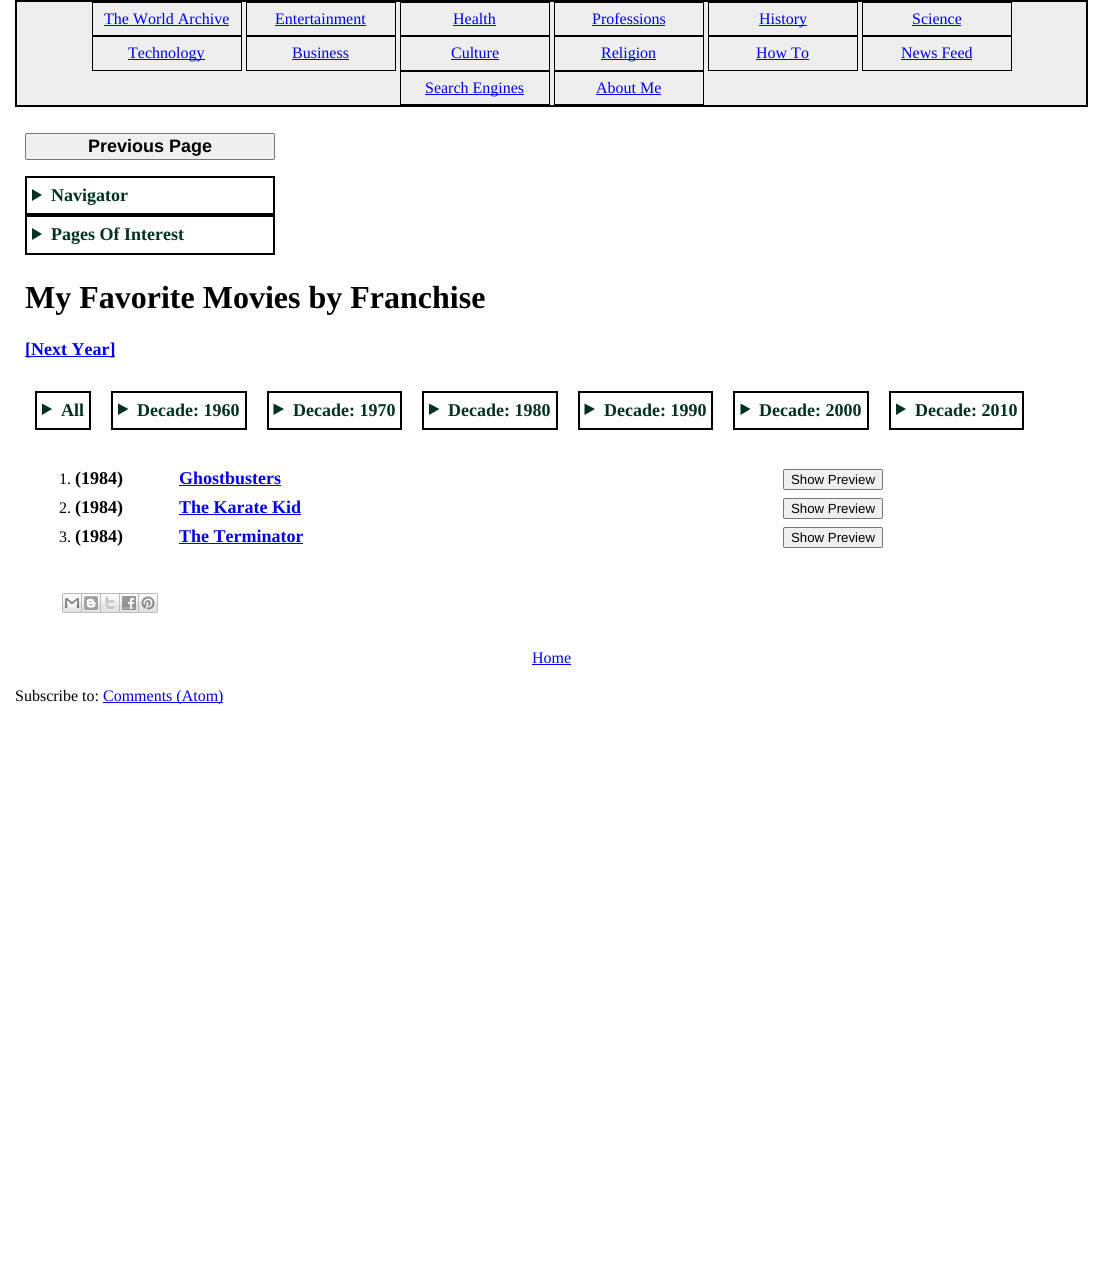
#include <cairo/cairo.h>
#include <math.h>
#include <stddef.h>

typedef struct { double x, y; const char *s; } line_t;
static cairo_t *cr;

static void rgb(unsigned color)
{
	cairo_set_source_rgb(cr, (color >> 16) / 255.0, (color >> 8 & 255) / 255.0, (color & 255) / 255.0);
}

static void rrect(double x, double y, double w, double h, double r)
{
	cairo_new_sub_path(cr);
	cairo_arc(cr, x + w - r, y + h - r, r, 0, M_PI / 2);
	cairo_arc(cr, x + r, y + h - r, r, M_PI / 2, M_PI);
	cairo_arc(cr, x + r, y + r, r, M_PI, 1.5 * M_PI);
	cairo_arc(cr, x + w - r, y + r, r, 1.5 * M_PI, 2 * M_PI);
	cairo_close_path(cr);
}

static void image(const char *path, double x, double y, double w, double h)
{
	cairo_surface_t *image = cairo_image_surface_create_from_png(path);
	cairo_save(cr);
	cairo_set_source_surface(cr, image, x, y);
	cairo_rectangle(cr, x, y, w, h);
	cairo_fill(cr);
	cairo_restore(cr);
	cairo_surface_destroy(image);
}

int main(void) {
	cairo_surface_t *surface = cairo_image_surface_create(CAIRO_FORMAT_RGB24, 1103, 1268);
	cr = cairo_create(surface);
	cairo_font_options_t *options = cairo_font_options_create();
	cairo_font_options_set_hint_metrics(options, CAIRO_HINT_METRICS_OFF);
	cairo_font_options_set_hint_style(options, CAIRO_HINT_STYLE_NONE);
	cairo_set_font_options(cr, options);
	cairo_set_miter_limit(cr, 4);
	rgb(0xffffff);
	cairo_paint(cr);
	rgb(0xeeeeee);
	cairo_rectangle(cr, 16, 1, 1071, 105);
	cairo_fill_preserve(cr);
	rgb(0x000000);
	cairo_stroke(cr);
	cairo_rectangle(cr, 92.5, 2.5, 149, 33);
	cairo_set_line_width(cr, 1);
	cairo_stroke(cr);
	rgb(0x0000ee);
	cairo_rectangle(cr, 104, 25, 125, 1);
	cairo_fill(cr);
	cairo_rectangle(cr, 246.5, 2.5, 149, 33);
	rgb(0x000000);
	cairo_stroke(cr);
	rgb(0x0000ee);
	cairo_rectangle(cr, 275, 25, 91, 1);
	cairo_fill(cr);
	cairo_rectangle(cr, 400.5, 2.5, 149, 33);
	rgb(0x000000);
	cairo_stroke(cr);
	rgb(0x0000ee);
	cairo_rectangle(cr, 453, 25, 43, 1);
	cairo_fill(cr);
	cairo_rectangle(cr, 554.5, 2.5, 149, 33);
	rgb(0x000000);
	cairo_stroke(cr);
	rgb(0x0000ee);
	cairo_rectangle(cr, 592, 25, 73, 1);
	cairo_fill(cr);
	cairo_rectangle(cr, 708.5, 2.5, 149, 33);
	rgb(0x000000);
	cairo_stroke(cr);
	rgb(0x0000ee);
	cairo_rectangle(cr, 759, 25, 48, 1);
	cairo_fill(cr);
	cairo_rectangle(cr, 862.5, 2.5, 149, 33);
	rgb(0x000000);
	cairo_stroke(cr);
	rgb(0x0000ee);
	cairo_rectangle(cr, 912, 25, 49, 1);
	cairo_fill(cr);
	cairo_rectangle(cr, 92.5, 36.5, 149, 34);
	rgb(0x000000);
	cairo_stroke(cr);
	rgb(0x0000ee);
	cairo_rectangle(cr, 128, 59, 77, 1);
	cairo_fill(cr);
	cairo_rectangle(cr, 246.5, 36.5, 149, 34);
	rgb(0x000000);
	cairo_stroke(cr);
	rgb(0x0000ee);
	cairo_rectangle(cr, 292, 59, 57, 1);
	cairo_fill(cr);
	cairo_rectangle(cr, 400.5, 36.5, 149, 34);
	rgb(0x000000);
	cairo_stroke(cr);
	rgb(0x0000ee);
	cairo_rectangle(cr, 451, 59, 48, 1);
	cairo_fill(cr);
	cairo_rectangle(cr, 554.5, 36.5, 149, 34);
	rgb(0x000000);
	cairo_stroke(cr);
	rgb(0x0000ee);
	cairo_rectangle(cr, 601, 59, 55, 1);
	cairo_fill(cr);
	cairo_rectangle(cr, 708.5, 36.5, 149, 34);
	rgb(0x000000);
	cairo_stroke(cr);
	rgb(0x0000ee);
	cairo_rectangle(cr, 756, 59, 53, 1);
	cairo_fill(cr);
	cairo_rectangle(cr, 862.5, 36.5, 149, 34);
	rgb(0x000000);
	cairo_stroke(cr);
	rgb(0x0000ee);
	cairo_rectangle(cr, 901, 59, 71, 1);
	cairo_fill(cr);
	cairo_rectangle(cr, 400.5, 71.5, 149, 33);
	rgb(0x000000);
	cairo_stroke(cr);
	rgb(0x0000ee);
	cairo_rectangle(cr, 425, 94, 99, 1);
	cairo_fill(cr);
	cairo_rectangle(cr, 554.5, 71.5, 149, 33);
	rgb(0x000000);
	cairo_stroke(cr);
	rgb(0x0000ee);
	cairo_rectangle(cr, 596, 94, 65, 1);
	cairo_fill(cr);
	rgb(0xefefef);
	rrect(25.5, 133.5, 249, 26, 1.5);
	cairo_fill_preserve(cr);
	rgb(0x767676);
	cairo_stroke(cr);
	cairo_rectangle(cr, 26, 177, 248, 37);
	rgb(0x000000);
	cairo_set_line_width(cr, 2);
	cairo_stroke(cr);
	rgb(0x013220);
	cairo_new_path(cr);
	cairo_move_to(cr, 32, 189);
	cairo_line_to(cr, 42, 195);
	cairo_line_to(cr, 32, 201);
	cairo_close_path(cr);
	cairo_fill(cr);
	cairo_rectangle(cr, 26, 216, 248, 38);
	rgb(0x000000);
	cairo_stroke(cr);
	rgb(0x013220);
	cairo_new_path(cr);
	cairo_move_to(cr, 32, 228);
	cairo_line_to(cr, 42, 234);
	cairo_line_to(cr, 32, 240);
	cairo_close_path(cr);
	cairo_fill(cr);
	rgb(0x0000ee);
	cairo_rectangle(cr, 25, 356, 90, 1);
	cairo_fill(cr);
	cairo_rectangle(cr, 36, 392, 54, 37);
	rgb(0x000000);
	cairo_stroke(cr);
	rgb(0x013220);
	cairo_new_path(cr);
	cairo_move_to(cr, 42, 403.5);
	cairo_line_to(cr, 52, 409);
	cairo_line_to(cr, 42, 415);
	cairo_close_path(cr);
	cairo_fill(cr);
	cairo_rectangle(cr, 112, 392, 134, 37);
	rgb(0x000000);
	cairo_stroke(cr);
	rgb(0x013220);
	cairo_new_path(cr);
	cairo_move_to(cr, 118, 403.5);
	cairo_line_to(cr, 128.5, 409);
	cairo_line_to(cr, 118, 415);
	cairo_close_path(cr);
	cairo_fill(cr);
	cairo_rectangle(cr, 268, 392, 133, 37);
	rgb(0x000000);
	cairo_stroke(cr);
	rgb(0x013220);
	cairo_new_path(cr);
	cairo_move_to(cr, 273.5, 403.5);
	cairo_line_to(cr, 284, 409);
	cairo_line_to(cr, 273.5, 415);
	cairo_close_path(cr);
	cairo_fill(cr);
	cairo_rectangle(cr, 423, 392, 134, 37);
	rgb(0x000000);
	cairo_stroke(cr);
	rgb(0x013220);
	cairo_new_path(cr);
	cairo_move_to(cr, 429, 403.5);
	cairo_line_to(cr, 439.5, 409);
	cairo_line_to(cr, 429, 415);
	cairo_close_path(cr);
	cairo_fill(cr);
	cairo_rectangle(cr, 579, 392, 133, 37);
	rgb(0x000000);
	cairo_stroke(cr);
	rgb(0x013220);
	cairo_new_path(cr);
	cairo_move_to(cr, 584.5, 403.5);
	cairo_line_to(cr, 595, 409);
	cairo_line_to(cr, 584.5, 415);
	cairo_close_path(cr);
	cairo_fill(cr);
	cairo_rectangle(cr, 734, 392, 134, 37);
	rgb(0x000000);
	cairo_stroke(cr);
	rgb(0x013220);
	cairo_new_path(cr);
	cairo_move_to(cr, 740.5, 403.5);
	cairo_line_to(cr, 750.5, 409);
	cairo_line_to(cr, 740.5, 415);
	cairo_close_path(cr);
	cairo_fill(cr);
	cairo_rectangle(cr, 890, 392, 133, 37);
	rgb(0x000000);
	cairo_stroke(cr);
	rgb(0x013220);
	cairo_new_path(cr);
	cairo_move_to(cr, 896, 403.5);
	cairo_line_to(cr, 906, 409);
	cairo_line_to(cr, 896, 415);
	cairo_close_path(cr);
	cairo_fill(cr);
	rgb(0x0000ee);
	cairo_rectangle(cr, 179, 485, 102, 1);
	cairo_fill(cr);
	rgb(0xefefef);
	rrect(783.5, 469.5, 99, 20, 1.5);
	cairo_fill_preserve(cr);
	rgb(0x767676);
	cairo_set_line_width(cr, 1);
	cairo_stroke(cr);
	rgb(0x0000ee);
	cairo_rectangle(cr, 179, 514, 122, 1);
	cairo_fill(cr);
	rgb(0xefefef);
	rrect(783.5, 498.5, 99, 20, 1.5);
	cairo_fill_preserve(cr);
	rgb(0x767676);
	cairo_stroke(cr);
	rgb(0x0000ee);
	cairo_rectangle(cr, 179, 543, 124, 1);
	cairo_fill(cr);
	rgb(0xefefef);
	rrect(783.5, 527.5, 99, 20, 1.5);
	cairo_fill_preserve(cr);
	rgb(0x767676);
	cairo_stroke(cr);
	image("img/1.png", 62, 593, 20, 20);
	image("img/2.png", 82, 593, 19, 20);
	image("img/3.png", 101, 593, 19, 20);
	image("img/4.png", 120, 593, 19, 20);
	image("img/5.png", 139, 593, 19, 20);
	rgb(0x0000ee);
	cairo_rectangle(cr, 532, 664, 39, 1);
	cairo_fill(cr);
	cairo_rectangle(cr, 103, 702, 120, 1);
	cairo_fill(cr);
	cairo_select_font_face(cr, "Liberation Serif", CAIRO_FONT_SLANT_NORMAL, CAIRO_FONT_WEIGHT_NORMAL);
	cairo_set_font_size(cr, 16);
	{
		static const line_t items[] = {
			{104, 24, "The World Archive"},
			{275, 24, "Entertainment"},
			{453, 24, "Health"},
			{592, 24, "Professions"},
			{759, 24, "History"},
			{912, 24, "Science"},
			{128, 58, "Technology"},
			{292, 58, "Business"},
			{451, 58, "Culture"},
			{601, 58, "Religion"},
			{756, 58, "How To"},
			{901, 58, "News Feed"},
			{425, 93, "Search Engines"},
			{596, 93, "About Me"},
		};
		for (size_t i = 0; i < sizeof items / sizeof *items; i++) {
			cairo_move_to(cr, items[i].x, items[i].y);
			cairo_show_text(cr, items[i].s);
		}
	}
	cairo_select_font_face(cr, "Liberation Sans", CAIRO_FONT_SLANT_NORMAL, CAIRO_FONT_WEIGHT_BOLD);
	cairo_set_font_size(cr, 18);
	rgb(0x000000);
	cairo_move_to(cr, 88, 152);
	cairo_show_text(cr, "Previous Page");
	cairo_select_font_face(cr, "Liberation Serif", CAIRO_FONT_SLANT_NORMAL, CAIRO_FONT_WEIGHT_BOLD);
	rgb(0x013220);
	cairo_move_to(cr, 51, 201);
	cairo_show_text(cr, "Navigator");
	cairo_move_to(cr, 51, 240);
	cairo_show_text(cr, "Pages Of Interest");
	cairo_set_font_size(cr, 32);
	rgb(0x000000);
	cairo_move_to(cr, 25, 308);
	cairo_show_text(cr, "My Favorite Movies by Franchise");
	cairo_set_font_size(cr, 18);
	rgb(0x0000ee);
	cairo_move_to(cr, 25, 355);
	cairo_show_text(cr, "[Next Year]");
	rgb(0x013220);
	{
		static const line_t items[] = {
			{61, 416, "All"},
			{137, 416, "Decade: 1960"},
			{293, 416, "Decade: 1970"},
			{448, 416, "Decade: 1980"},
			{604, 416, "Decade: 1990"},
			{759, 416, "Decade: 2000"},
			{915, 416, "Decade: 2010"},
		};
		for (size_t i = 0; i < sizeof items / sizeof *items; i++) {
			cairo_move_to(cr, items[i].x, items[i].y);
			cairo_show_text(cr, items[i].s);
		}
	}
	cairo_select_font_face(cr, "Liberation Serif", CAIRO_FONT_SLANT_NORMAL, CAIRO_FONT_WEIGHT_NORMAL);
	cairo_set_font_size(cr, 16);
	rgb(0x000000);
	cairo_move_to(cr, 59, 484);
	cairo_show_text(cr, "1.");
	cairo_select_font_face(cr, "Liberation Serif", CAIRO_FONT_SLANT_NORMAL, CAIRO_FONT_WEIGHT_BOLD);
	cairo_set_font_size(cr, 18);
	cairo_move_to(cr, 75, 484);
	cairo_show_text(cr, "(1984)");
	rgb(0x0000ee);
	cairo_move_to(cr, 179, 484);
	cairo_show_text(cr, "Ghostbusters");
	cairo_select_font_face(cr, "Liberation Sans", CAIRO_FONT_SLANT_NORMAL, CAIRO_FONT_WEIGHT_NORMAL);
	cairo_set_font_size(cr, 13.25);
	rgb(0x000000);
	cairo_move_to(cr, 791, 484);
	cairo_show_text(cr, "Show Preview");
	cairo_select_font_face(cr, "Liberation Serif", CAIRO_FONT_SLANT_NORMAL, CAIRO_FONT_WEIGHT_NORMAL);
	cairo_set_font_size(cr, 16);
	cairo_move_to(cr, 59, 513);
	cairo_show_text(cr, "2.");
	cairo_select_font_face(cr, "Liberation Serif", CAIRO_FONT_SLANT_NORMAL, CAIRO_FONT_WEIGHT_BOLD);
	cairo_set_font_size(cr, 18);
	cairo_move_to(cr, 75, 513);
	cairo_show_text(cr, "(1984)");
	rgb(0x0000ee);
	cairo_move_to(cr, 179, 513);
	cairo_show_text(cr, "The Karate Kid");
	cairo_select_font_face(cr, "Liberation Sans", CAIRO_FONT_SLANT_NORMAL, CAIRO_FONT_WEIGHT_NORMAL);
	cairo_set_font_size(cr, 13.25);
	rgb(0x000000);
	cairo_move_to(cr, 791, 513);
	cairo_show_text(cr, "Show Preview");
	cairo_select_font_face(cr, "Liberation Serif", CAIRO_FONT_SLANT_NORMAL, CAIRO_FONT_WEIGHT_NORMAL);
	cairo_set_font_size(cr, 16);
	cairo_move_to(cr, 59, 542);
	cairo_show_text(cr, "3.");
	cairo_select_font_face(cr, "Liberation Serif", CAIRO_FONT_SLANT_NORMAL, CAIRO_FONT_WEIGHT_BOLD);
	cairo_set_font_size(cr, 18);
	cairo_move_to(cr, 75, 542);
	cairo_show_text(cr, "(1984)");
	rgb(0x0000ee);
	cairo_move_to(cr, 179, 542);
	cairo_show_text(cr, "The Terminator");
	cairo_select_font_face(cr, "Liberation Sans", CAIRO_FONT_SLANT_NORMAL, CAIRO_FONT_WEIGHT_NORMAL);
	cairo_set_font_size(cr, 13.25);
	rgb(0x000000);
	cairo_move_to(cr, 791, 542);
	cairo_show_text(cr, "Show Preview");
	cairo_select_font_face(cr, "Liberation Serif", CAIRO_FONT_SLANT_NORMAL, CAIRO_FONT_WEIGHT_NORMAL);
	cairo_set_font_size(cr, 16);
	rgb(0x0000ee);
	cairo_move_to(cr, 532, 663);
	cairo_show_text(cr, "Home");
	rgb(0x000000);
	cairo_move_to(cr, 15, 701);
	cairo_show_text(cr, "Subscribe to:");
	rgb(0x0000ee);
	cairo_move_to(cr, 103, 701);
	cairo_show_text(cr, "Comments (Atom)");
	cairo_surface_write_to_png(surface, "page.png");
	cairo_font_options_destroy(options);
	cairo_destroy(cr);
	cairo_surface_destroy(surface);
	return 0;
}
